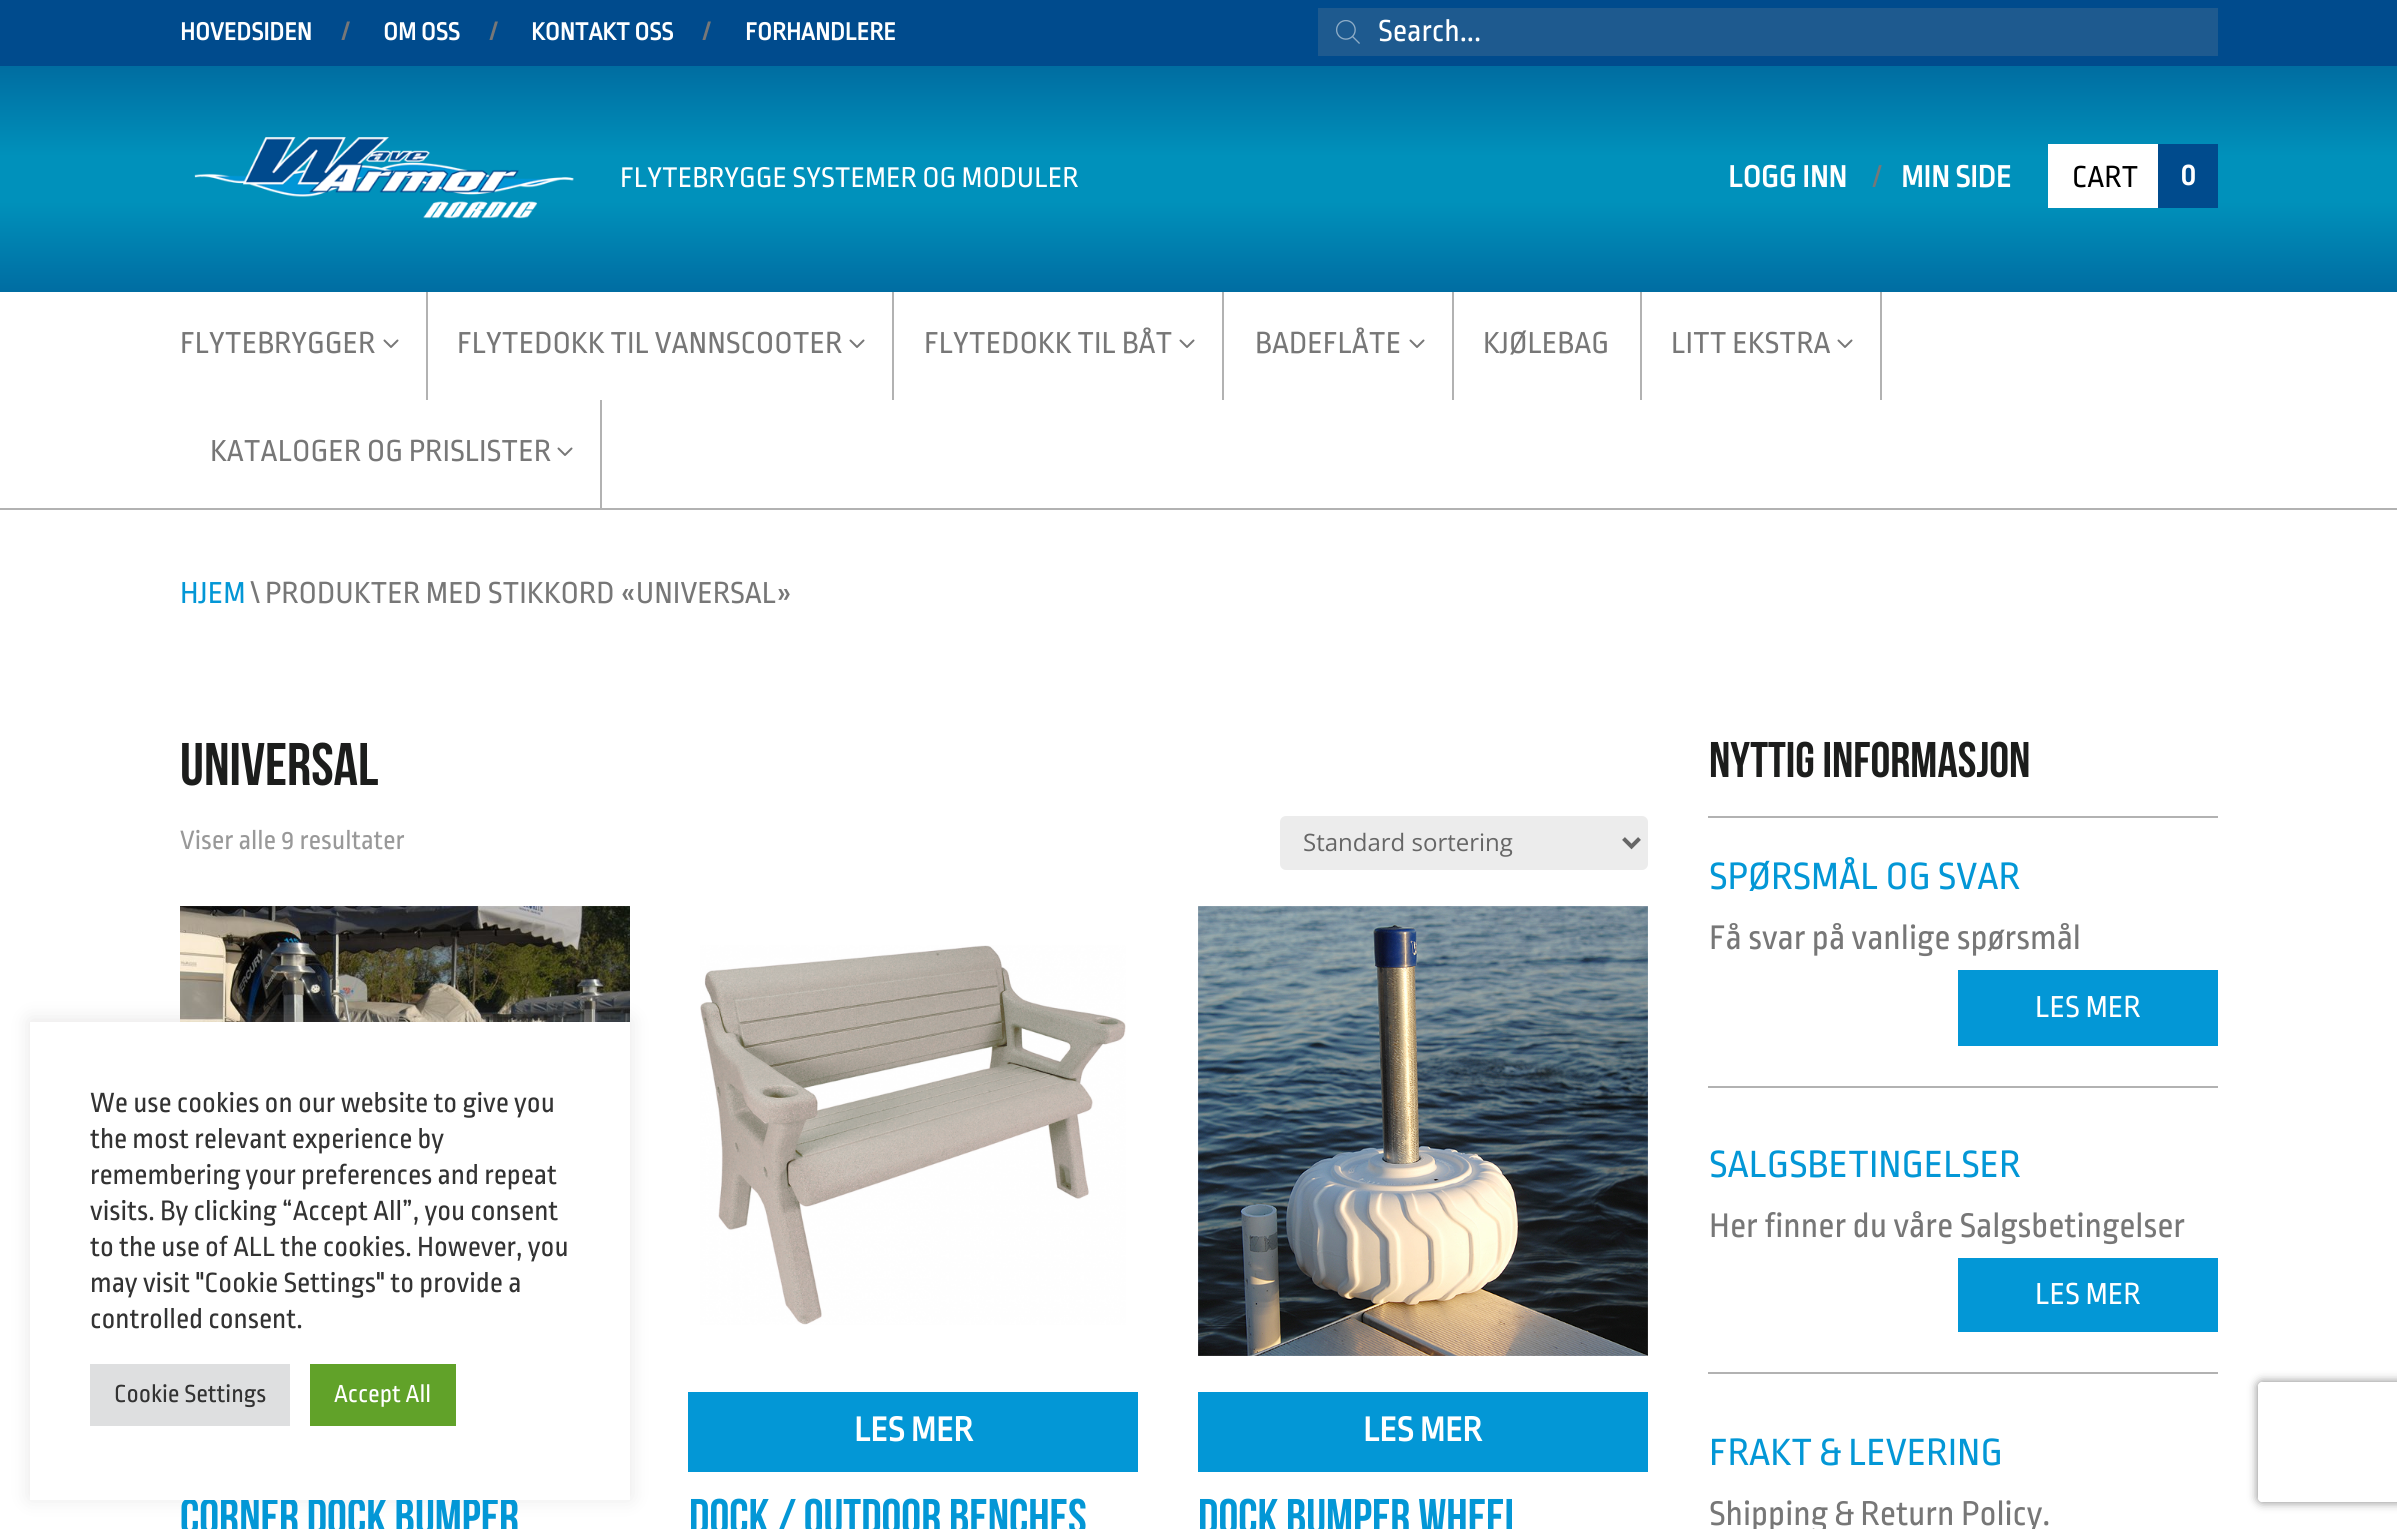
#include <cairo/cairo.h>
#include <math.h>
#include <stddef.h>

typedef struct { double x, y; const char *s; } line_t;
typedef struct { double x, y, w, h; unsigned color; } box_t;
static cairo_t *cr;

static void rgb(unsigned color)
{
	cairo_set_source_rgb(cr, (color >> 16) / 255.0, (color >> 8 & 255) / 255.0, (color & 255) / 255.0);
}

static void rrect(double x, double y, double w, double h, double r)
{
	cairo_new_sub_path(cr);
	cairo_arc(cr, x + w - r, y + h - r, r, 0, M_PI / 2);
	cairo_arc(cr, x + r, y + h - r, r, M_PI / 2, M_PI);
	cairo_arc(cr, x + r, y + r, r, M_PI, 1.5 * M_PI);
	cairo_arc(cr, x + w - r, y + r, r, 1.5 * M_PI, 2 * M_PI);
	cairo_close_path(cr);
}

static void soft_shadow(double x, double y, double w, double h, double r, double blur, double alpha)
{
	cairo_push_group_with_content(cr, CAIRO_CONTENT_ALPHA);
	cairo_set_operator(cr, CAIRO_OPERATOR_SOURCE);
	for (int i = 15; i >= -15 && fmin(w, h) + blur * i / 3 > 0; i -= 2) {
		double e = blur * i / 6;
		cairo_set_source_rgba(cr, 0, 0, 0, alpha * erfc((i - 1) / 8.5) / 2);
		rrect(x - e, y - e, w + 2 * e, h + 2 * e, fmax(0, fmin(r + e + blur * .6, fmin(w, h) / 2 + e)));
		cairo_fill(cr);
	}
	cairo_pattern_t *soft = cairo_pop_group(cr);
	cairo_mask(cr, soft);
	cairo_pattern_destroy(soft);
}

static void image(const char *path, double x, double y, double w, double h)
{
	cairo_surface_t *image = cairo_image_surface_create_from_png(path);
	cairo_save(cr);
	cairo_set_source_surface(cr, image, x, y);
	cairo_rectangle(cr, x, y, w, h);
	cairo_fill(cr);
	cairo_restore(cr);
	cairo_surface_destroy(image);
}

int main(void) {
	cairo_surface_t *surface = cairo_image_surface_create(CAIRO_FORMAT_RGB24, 2397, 1529);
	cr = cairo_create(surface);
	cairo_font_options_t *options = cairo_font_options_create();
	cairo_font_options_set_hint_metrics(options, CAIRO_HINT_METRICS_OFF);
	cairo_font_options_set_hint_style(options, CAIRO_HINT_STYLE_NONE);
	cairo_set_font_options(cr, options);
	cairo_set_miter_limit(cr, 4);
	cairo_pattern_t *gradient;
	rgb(0xffffff);
	cairo_paint(cr);
	rgb(0x004b8d);
	cairo_rectangle(cr, 0, 0, 2397, 66);
	cairo_fill(cr);
	rgb(0x1e5a8f);
	cairo_rectangle(cr, 1318, 8, 900, 48);
	cairo_fill(cr);
	image("img/1.png", 1336, 20, 24, 24);
	gradient = cairo_pattern_create_linear(1199, 66, 1199, 292);
	cairo_pattern_add_color_stop_rgba(gradient, 0, 0, 0.427, 0.631, 1);
	cairo_pattern_add_color_stop_rgba(gradient, 0.4, 0, 0.569, 0.733, 1);
	cairo_pattern_add_color_stop_rgba(gradient, 0.6, 0, 0.569, 0.733, 1);
	cairo_pattern_add_color_stop_rgba(gradient, 1, 0, 0.427, 0.635, 1);
	cairo_set_source(cr, gradient);
	cairo_pattern_destroy(gradient);
	cairo_rectangle(cr, 0, 66, 2397, 226);
	cairo_fill(cr);
	image("img/2.png", 194, 137, 380, 82);
	{
		static const box_t items[] = {
			{2048, 144, 110, 64, 0xffffff},
			{2158, 144, 60, 64, 0x004b8d},
			{0, 508, 2397, 2, 0xb2b2b2},
			{426, 292, 2, 108, 0xb2b2b2},
		};
		for (size_t i = 0; i < sizeof items / sizeof *items; i++) {
			rgb(items[i].color);
			cairo_rectangle(cr, items[i].x, items[i].y, items[i].w, items[i].h);
			cairo_fill(cr);
		}
	}
	image("img/3.png", 383, 339, 16, 9);
	cairo_rectangle(cr, 892, 292, 2, 108);
	cairo_fill(cr);
	image("img/3.png", 849, 339, 16, 9);
	cairo_rectangle(cr, 1222, 292, 2, 108);
	cairo_fill(cr);
	image("img/3.png", 1179, 339, 16, 9);
	cairo_rectangle(cr, 1452, 292, 2, 108);
	cairo_fill(cr);
	image("img/3.png", 1409, 339, 16, 9);
	cairo_rectangle(cr, 1640, 292, 2, 108);
	cairo_fill(cr);
	cairo_rectangle(cr, 1880, 292, 2, 108);
	cairo_fill(cr);
	image("img/3.png", 1837, 339, 16, 9);
	cairo_rectangle(cr, 600, 400, 2, 108);
	cairo_fill(cr);
	image("img/3.png", 557, 447, 16, 9);
	rgb(0xececec);
	rrect(1280, 816, 368, 54, 6);
	cairo_fill(cr);
	cairo_new_path(cr);
	cairo_move_to(cr, 1623.5, 838.5);
	cairo_line_to(cr, 1631.5, 846.5);
	cairo_line_to(cr, 1639.5, 838.5);
	rgb(0x666666);
	cairo_set_line_width(cr, 4);
	cairo_stroke(cr);
	image("img/4.png", 180, 906, 450, 116);
	image("img/5.png", 700, 945, 426, 380);
	rgb(0x0397d6);
	cairo_rectangle(cr, 688, 1392, 450, 80);
	cairo_fill(cr);
	image("img/6.png", 1198, 906, 450, 450);
	{
		static const box_t items[] = {
			{1198, 1392, 450, 80, 0x0397d6},
			{1708, 816, 510, 2, 0xb2b2b2},
			{1708, 1086, 510, 2, 0xb2b2b2},
			{1958, 970, 260, 76, 0x0397d6},
			{1708, 1372, 510, 2, 0xb2b2b2},
			{1958, 1258, 260, 74, 0x0397d6},
		};
		for (size_t i = 0; i < sizeof items / sizeof *items; i++) {
			rgb(items[i].color);
			cairo_rectangle(cr, items[i].x, items[i].y, items[i].w, items[i].h);
			cairo_fill(cr);
		}
	}
	rgb(0xacabab);
	soft_shadow(30, 1020, 600, 478, 0, 10, 0.3);
	cairo_save(cr);
	cairo_set_fill_rule(cr, CAIRO_FILL_RULE_EVEN_ODD);
	cairo_new_path(cr);
	cairo_move_to(cr, 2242, 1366);
	cairo_line_to(cr, 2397, 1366);
	cairo_line_to(cr, 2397, 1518);
	cairo_line_to(cr, 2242, 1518);
	cairo_close_path(cr);
	cairo_move_to(cr, 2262, 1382);
	cairo_line_to(cr, 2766, 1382);
	cairo_curve_to(cr, 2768, 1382, 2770, 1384, 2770, 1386);
	cairo_line_to(cr, 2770, 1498);
	cairo_curve_to(cr, 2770, 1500, 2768, 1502, 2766, 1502);
	cairo_line_to(cr, 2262, 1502);
	cairo_curve_to(cr, 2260, 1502, 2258, 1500, 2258, 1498);
	cairo_line_to(cr, 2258, 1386);
	cairo_curve_to(cr, 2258, 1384, 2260, 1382, 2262, 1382);
	cairo_close_path(cr);
	cairo_clip(cr);
	rgb(0x808080);
	soft_shadow(2258, 1382, 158, 120, 4, 5, 1);
	cairo_restore(cr);
	cairo_select_font_face(cr, "Ropa Sans", CAIRO_FONT_SLANT_NORMAL, CAIRO_FONT_WEIGHT_BOLD);
	cairo_set_font_size(cr, 26);
	rgb(0xffffff);
	cairo_move_to(cr, 180, 40);
	cairo_show_text(cr, "HOVEDSIDEN");
	rgb(0x777777);
	cairo_move_to(cr, 342, 40);
	cairo_show_text(cr, "/");
	rgb(0xffffff);
	cairo_move_to(cr, 383, 40);
	cairo_show_text(cr, "OM OSS");
	rgb(0x777777);
	cairo_move_to(cr, 490, 40);
	cairo_show_text(cr, "/");
	rgb(0xffffff);
	cairo_move_to(cr, 531, 40);
	cairo_show_text(cr, "KONTAKT OSS");
	rgb(0x777777);
	cairo_move_to(cr, 703, 40);
	cairo_show_text(cr, "/");
	rgb(0xffffff);
	cairo_move_to(cr, 745, 40);
	cairo_show_text(cr, "FORHANDLERE");
	cairo_select_font_face(cr, "Ropa Sans", CAIRO_FONT_SLANT_NORMAL, CAIRO_FONT_WEIGHT_NORMAL);
	cairo_set_font_size(cr, 32);
	cairo_move_to(cr, 1378, 41);
	cairo_show_text(cr, "Search...");
	cairo_set_font_size(cr, 30);
	cairo_move_to(cr, 620, 187);
	cairo_show_text(cr, "FLYTEBRYGGE SYSTEMER OG MODULER");
	cairo_select_font_face(cr, "Ropa Sans", CAIRO_FONT_SLANT_NORMAL, CAIRO_FONT_WEIGHT_BOLD);
	cairo_set_font_size(cr, 32);
	cairo_move_to(cr, 1728, 187);
	cairo_show_text(cr, "LOGG INN");
	cairo_select_font_face(cr, "Ropa Sans", CAIRO_FONT_SLANT_NORMAL, CAIRO_FONT_WEIGHT_NORMAL);
	rgb(0x777777);
	cairo_move_to(cr, 1873, 187);
	cairo_show_text(cr, "/");
	cairo_select_font_face(cr, "Ropa Sans", CAIRO_FONT_SLANT_NORMAL, CAIRO_FONT_WEIGHT_BOLD);
	rgb(0xffffff);
	cairo_move_to(cr, 1901, 187);
	cairo_show_text(cr, "MIN SIDE");
	cairo_select_font_face(cr, "Ropa Sans", CAIRO_FONT_SLANT_NORMAL, CAIRO_FONT_WEIGHT_NORMAL);
	rgb(0x000000);
	cairo_move_to(cr, 2072, 187);
	cairo_show_text(cr, "CART");
	cairo_select_font_face(cr, "Ropa Sans", CAIRO_FONT_SLANT_NORMAL, CAIRO_FONT_WEIGHT_BOLD);
	rgb(0xffffff);
	cairo_move_to(cr, 2180, 185);
	cairo_show_text(cr, "0");
	cairo_select_font_face(cr, "Ropa Sans", CAIRO_FONT_SLANT_NORMAL, CAIRO_FONT_WEIGHT_NORMAL);
	rgb(0x777777);
	{
		static const line_t items[] = {
			{180, 353, "FLYTEBRYGGER"},
			{457, 353, "FLYTEDOKK TIL VANNSCOOTER"},
			{924, 353, "FLYTEDOKK TIL BÅT"},
			{1255, 353, "BADEFLÅTE"},
			{1483, 353, "KJØLEBAG"},
			{1671, 353, "LITT EKSTRA"},
			{210, 461, "KATALOGER OG PRISLISTER"},
		};
		for (size_t i = 0; i < sizeof items / sizeof *items; i++) {
			cairo_move_to(cr, items[i].x, items[i].y);
			cairo_show_text(cr, items[i].s);
		}
	}
	rgb(0x0397d6);
	cairo_move_to(cr, 180, 603);
	cairo_show_text(cr, "HJEM");
	rgb(0x777777);
	cairo_move_to(cr, 251, 603);
	cairo_show_text(cr, "\\ PRODUKTER MED STIKKORD «UNIVERSAL»");
	cairo_select_font_face(cr, "Bebas Neue", CAIRO_FONT_SLANT_NORMAL, CAIRO_FONT_WEIGHT_NORMAL);
	cairo_set_font_size(cr, 60);
	rgb(0x1c1d1c);
	cairo_move_to(cr, 180, 785);
	cairo_show_text(cr, "UNIVERSAL");
	cairo_select_font_face(cr, "Ropa Sans", CAIRO_FONT_SLANT_NORMAL, CAIRO_FONT_WEIGHT_NORMAL);
	cairo_set_font_size(cr, 28);
	rgb(0x999999);
	cairo_move_to(cr, 180, 849);
	cairo_show_text(cr, "Viser alle 9 resultater");
	cairo_select_font_face(cr, "Open Sans", CAIRO_FONT_SLANT_NORMAL, CAIRO_FONT_WEIGHT_NORMAL);
	cairo_set_font_size(cr, 24);
	rgb(0x666666);
	cairo_move_to(cr, 1303, 851);
	cairo_show_text(cr, "Standard sortering");
	cairo_select_font_face(cr, "Bebas Neue", CAIRO_FONT_SLANT_NORMAL, CAIRO_FONT_WEIGHT_NORMAL);
	cairo_set_font_size(cr, 50);
	rgb(0x0397d6);
	cairo_move_to(cr, 180, 1534);
	cairo_show_text(cr, "CORNER DOCK BUMPER");
	cairo_select_font_face(cr, "Ropa Sans", CAIRO_FONT_SLANT_NORMAL, CAIRO_FONT_WEIGHT_BOLD);
	cairo_set_font_size(cr, 36);
	rgb(0xffffff);
	cairo_move_to(cr, 854, 1441);
	cairo_show_text(cr, "LES MER");
	cairo_select_font_face(cr, "Bebas Neue", CAIRO_FONT_SLANT_NORMAL, CAIRO_FONT_WEIGHT_NORMAL);
	cairo_set_font_size(cr, 50);
	rgb(0x0397d6);
	cairo_move_to(cr, 689, 1534);
	cairo_show_text(cr, "DOCK / OUTDOOR BENCHES");
	cairo_select_font_face(cr, "Ropa Sans", CAIRO_FONT_SLANT_NORMAL, CAIRO_FONT_WEIGHT_BOLD);
	cairo_set_font_size(cr, 36);
	rgb(0xffffff);
	cairo_move_to(cr, 1363, 1441);
	cairo_show_text(cr, "LES MER");
	cairo_select_font_face(cr, "Bebas Neue", CAIRO_FONT_SLANT_NORMAL, CAIRO_FONT_WEIGHT_NORMAL);
	cairo_set_font_size(cr, 50);
	rgb(0x0397d6);
	cairo_move_to(cr, 1198, 1534);
	cairo_show_text(cr, "DOCK BUMPER WHEEL");
	rgb(0x1c1d1c);
	cairo_move_to(cr, 1709, 777);
	cairo_show_text(cr, "NYTTIG INFORMASJON");
	cairo_select_font_face(cr, "Ropa Sans", CAIRO_FONT_SLANT_NORMAL, CAIRO_FONT_WEIGHT_NORMAL);
	cairo_set_font_size(cr, 40);
	rgb(0x0397d6);
	cairo_move_to(cr, 1709, 889);
	cairo_show_text(cr, "SPØRSMÅL OG SVAR");
	cairo_set_font_size(cr, 36);
	rgb(0x777777);
	cairo_move_to(cr, 1709, 949);
	cairo_show_text(cr, "Få svar på vanlige spørsmål");
	cairo_set_font_size(cr, 32);
	rgb(0xffffff);
	cairo_move_to(cr, 2035, 1017);
	cairo_show_text(cr, "LES MER");
	cairo_set_font_size(cr, 40);
	rgb(0x0397d6);
	cairo_move_to(cr, 1709, 1177);
	cairo_show_text(cr, "SALGSBETINGELSER");
	cairo_set_font_size(cr, 36);
	rgb(0x777777);
	cairo_move_to(cr, 1709, 1237);
	cairo_show_text(cr, "Her finner du våre Salgsbetingelser");
	cairo_set_font_size(cr, 32);
	rgb(0xffffff);
	cairo_move_to(cr, 2035, 1304);
	cairo_show_text(cr, "LES MER");
	cairo_set_font_size(cr, 40);
	rgb(0x0397d6);
	cairo_move_to(cr, 1709, 1465);
	cairo_show_text(cr, "FRAKT & LEVERING");
	cairo_set_font_size(cr, 36);
	rgb(0x777777);
	cairo_move_to(cr, 1709, 1525);
	cairo_show_text(cr, "Shipping & Return Policy.");
	rgb(0xffffff);
	cairo_rectangle(cr, 30, 1022, 600, 478);
	cairo_fill(cr);
	cairo_set_font_size(cr, 29.3);
	rgb(0x333333);
	{
		static const line_t items[] = {
			{90, 1112, "We use cookies on our website to give you"},
			{90, 1148, "the most relevant experience by"},
			{90, 1184, "remembering your preferences and repeat"},
			{90, 1220, "visits. By clicking “Accept All”, you consent"},
			{90, 1256, "to the use of ALL the cookies. However, you"},
			{90, 1292, "may visit \"Cookie Settings\" to provide a"},
			{90, 1328, "controlled consent."},
		};
		for (size_t i = 0; i < sizeof items / sizeof *items; i++) {
			cairo_move_to(cr, items[i].x, items[i].y);
			cairo_show_text(cr, items[i].s);
		}
	}
	rgb(0xdedfe0);
	cairo_rectangle(cr, 90, 1364, 200, 62);
	cairo_fill(cr);
	cairo_set_font_size(cr, 26);
	rgb(0x333333);
	cairo_move_to(cr, 114, 1402);
	cairo_show_text(cr, "Cookie Settings");
	rgb(0x61a229);
	cairo_rectangle(cr, 310, 1364, 146, 62);
	cairo_fill(cr);
	rgb(0xffffff);
	cairo_move_to(cr, 334, 1402);
	cairo_show_text(cr, "Accept All");
	cairo_surface_write_to_png(surface, "page.png");
	cairo_font_options_destroy(options);
	cairo_destroy(cr);
	cairo_surface_destroy(surface);
	return 0;
}
